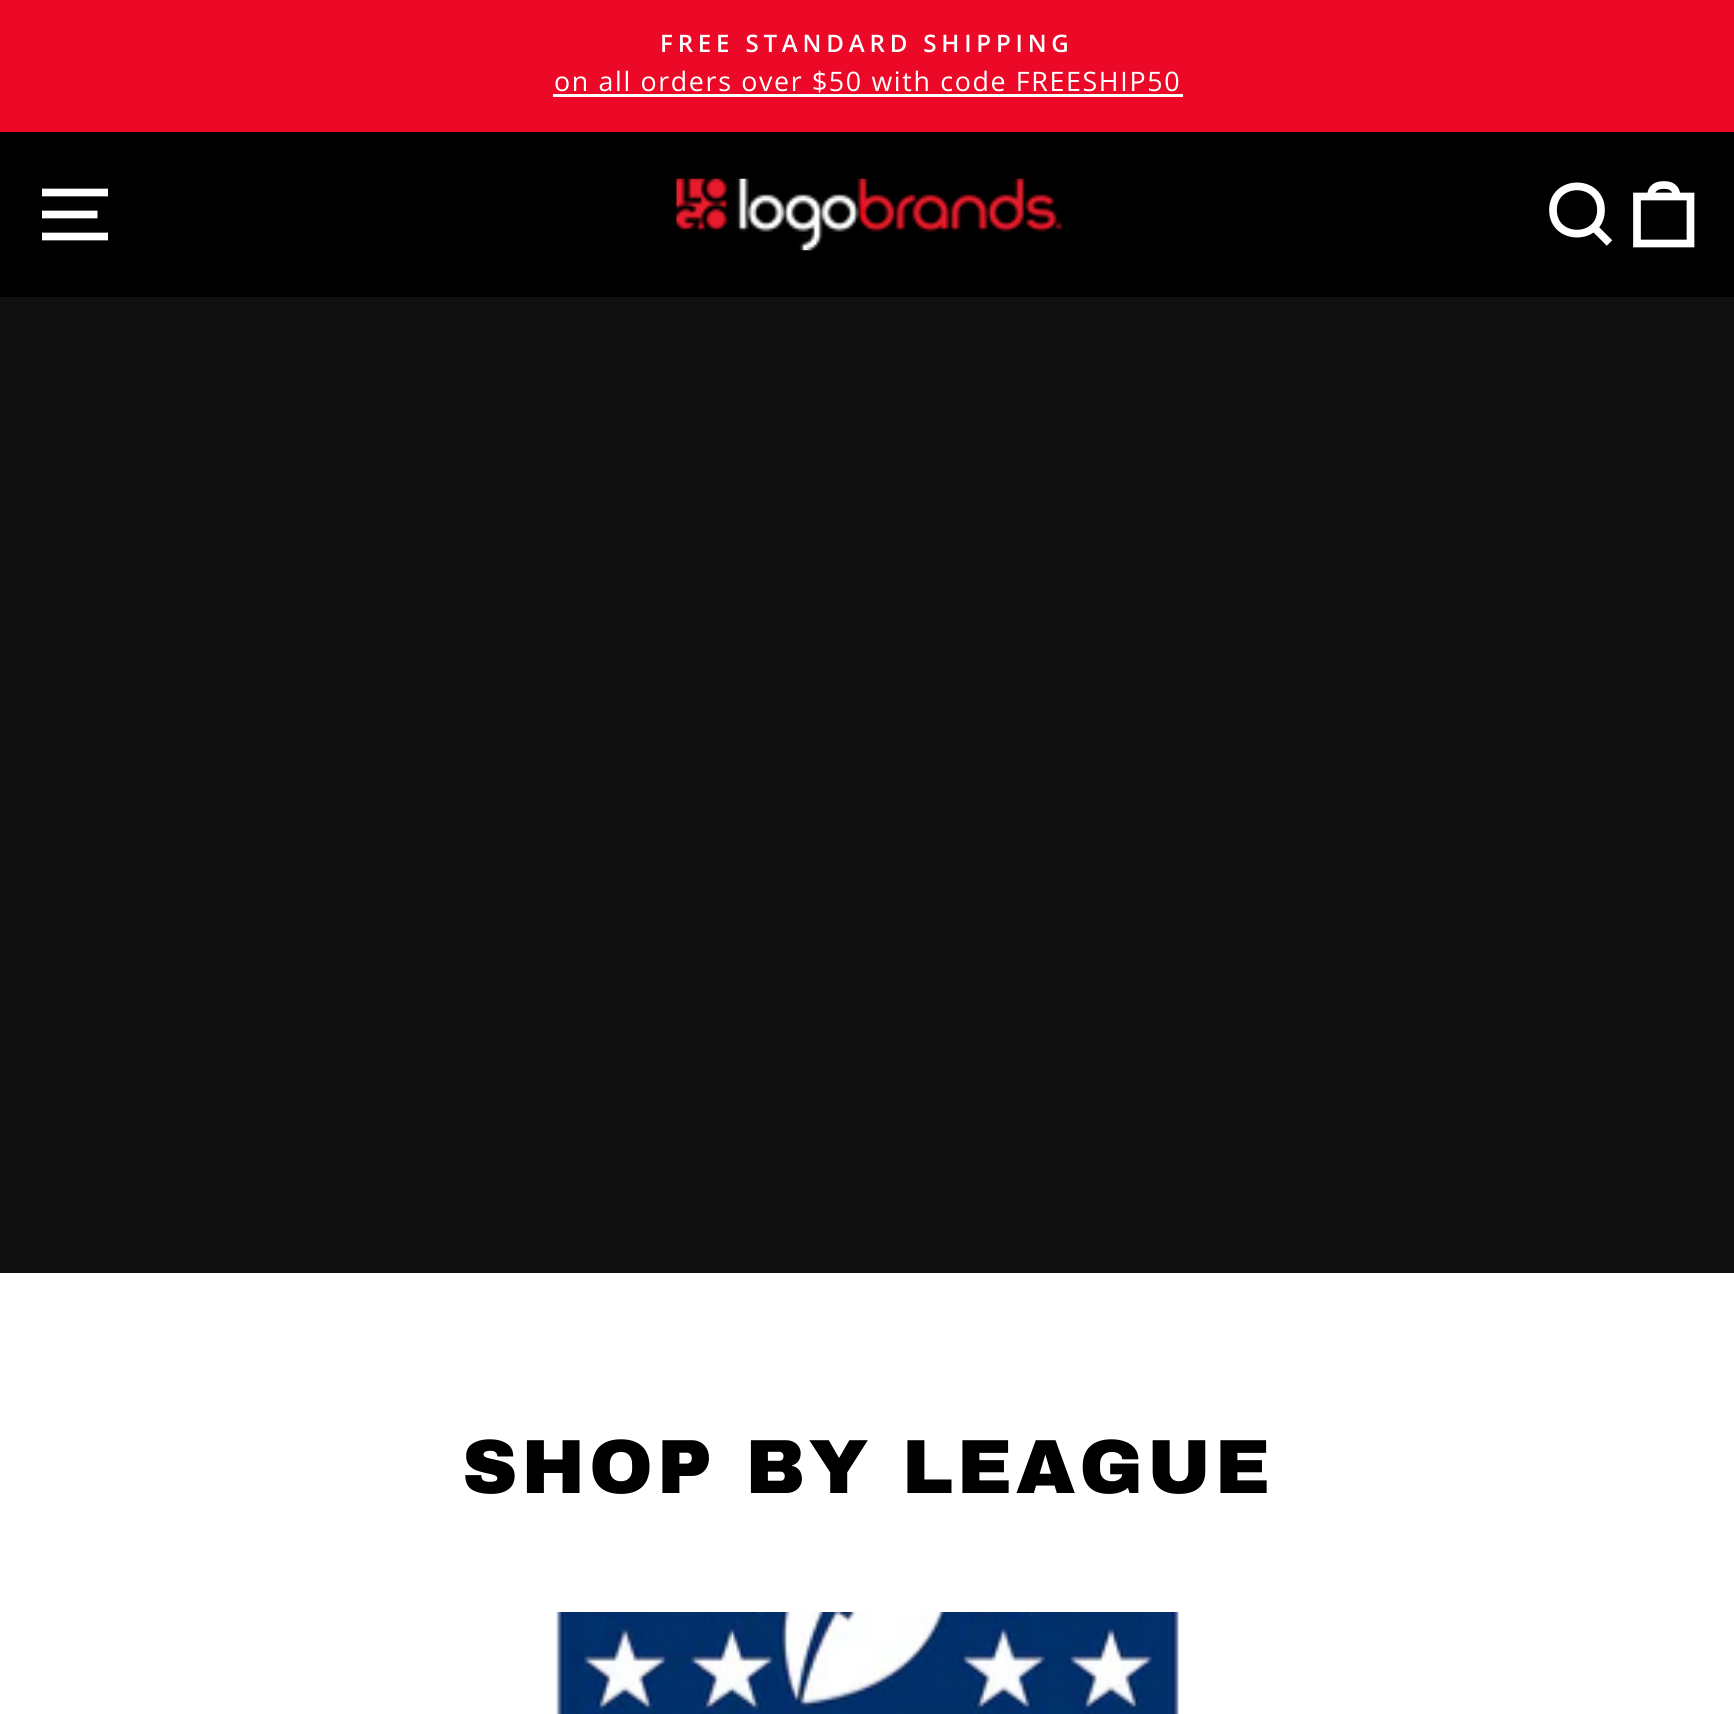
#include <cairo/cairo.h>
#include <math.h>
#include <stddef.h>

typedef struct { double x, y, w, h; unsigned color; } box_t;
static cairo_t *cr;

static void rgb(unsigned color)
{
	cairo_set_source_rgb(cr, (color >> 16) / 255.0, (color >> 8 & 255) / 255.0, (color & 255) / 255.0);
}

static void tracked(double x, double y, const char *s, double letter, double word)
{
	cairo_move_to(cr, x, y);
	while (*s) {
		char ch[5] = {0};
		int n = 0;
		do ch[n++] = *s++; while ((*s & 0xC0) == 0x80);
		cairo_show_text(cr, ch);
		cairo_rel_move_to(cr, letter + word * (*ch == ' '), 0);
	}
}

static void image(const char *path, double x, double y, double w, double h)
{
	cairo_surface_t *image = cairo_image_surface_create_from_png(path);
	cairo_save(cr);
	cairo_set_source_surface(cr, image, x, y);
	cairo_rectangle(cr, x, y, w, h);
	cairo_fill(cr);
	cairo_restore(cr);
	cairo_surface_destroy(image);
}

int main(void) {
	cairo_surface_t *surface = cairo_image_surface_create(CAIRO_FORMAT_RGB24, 1734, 1714);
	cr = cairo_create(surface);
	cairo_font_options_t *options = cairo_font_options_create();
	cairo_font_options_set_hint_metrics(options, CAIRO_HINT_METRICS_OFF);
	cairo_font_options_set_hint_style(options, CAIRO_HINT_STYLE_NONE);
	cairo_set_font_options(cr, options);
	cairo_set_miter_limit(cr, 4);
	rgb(0xffffff);
	cairo_paint(cr);
	{
		static const box_t items[] = {
			{0, 0, 1734, 132, 0xec0928},
			{553, 94, 630, 3, 0xffffff},
			{0, 132, 1734, 165, 0x000000},
		};
		for (size_t i = 0; i < sizeof items / sizeof *items; i++) {
			rgb(items[i].color);
			cairo_rectangle(cr, items[i].x, items[i].y, items[i].w, items[i].h);
			cairo_fill(cr);
		}
	}
	cairo_new_path(cr);
	cairo_move_to(cr, 42, 192.5);
	cairo_line_to(cr, 108, 192.5);
	cairo_move_to(cr, 42, 214.5);
	cairo_line_to(cr, 97.5, 214.5);
	cairo_move_to(cr, 42, 236.5);
	cairo_line_to(cr, 108, 236.5);
	rgb(0xffffff);
	cairo_set_line_width(cr, 7.7);
	cairo_stroke(cr);
	image("img/1.png", 676, 178, 386, 73);
	cairo_new_path(cr);
	cairo_move_to(cr, 1601, 210);
	cairo_curve_to(cr, 1601, 241.5, 1553, 241.5, 1553, 210);
	cairo_curve_to(cr, 1553, 178.5, 1601, 178.5, 1601, 210);
	cairo_close_path(cr);
	cairo_move_to(cr, 1609.5, 243);
	cairo_line_to(cr, 1594, 227.5);
	cairo_stroke(cr);
	cairo_new_path(cr);
	cairo_move_to(cr, 1637, 196.5);
	cairo_line_to(cr, 1690.5, 196.5);
	cairo_line_to(cr, 1690.5, 243.5);
	cairo_line_to(cr, 1637, 243.5);
	cairo_close_path(cr);
	cairo_stroke(cr);
	cairo_new_path(cr);
	cairo_move_to(cr, 1651, 196.5);
	cairo_curve_to(cr, 1651, 187.5, 1657, 185, 1664, 185);
	cairo_curve_to(cr, 1670.5, 185, 1676.5, 187.5, 1676.5, 196.5);
	cairo_stroke(cr);
	rgb(0x0f0f0f);
	cairo_rectangle(cr, 0, 297, 1734, 976);
	cairo_fill(cr);
	image("img/2.png", 555, 1612, 624, 102);
	cairo_select_font_face(cr, "Open Sans SemiBold", CAIRO_FONT_SLANT_NORMAL, CAIRO_FONT_WEIGHT_NORMAL);
	cairo_set_font_size(cr, 24.1);
	rgb(0xffffff);
	tracked(660, 52, "FREE STANDARD SHIPPING", 4.8, 0);
	cairo_select_font_face(cr, "Open Sans", CAIRO_FONT_SLANT_NORMAL, CAIRO_FONT_WEIGHT_NORMAL);
	cairo_set_font_size(cr, 26.8);
	tracked(554, 91, "on all orders over $50 with code FREESHIP50", 1.65, 0);
	cairo_select_font_face(cr, "Archivo Black", CAIRO_FONT_SLANT_NORMAL, CAIRO_FONT_WEIGHT_NORMAL);
	cairo_set_font_size(cr, 76.75);
	rgb(0x000000);
	tracked(462, 1493, "SHOP BY LEAGUE", 3.8, 0);
	cairo_surface_write_to_png(surface, "page.png");
	cairo_font_options_destroy(options);
	cairo_destroy(cr);
	cairo_surface_destroy(surface);
	return 0;
}
